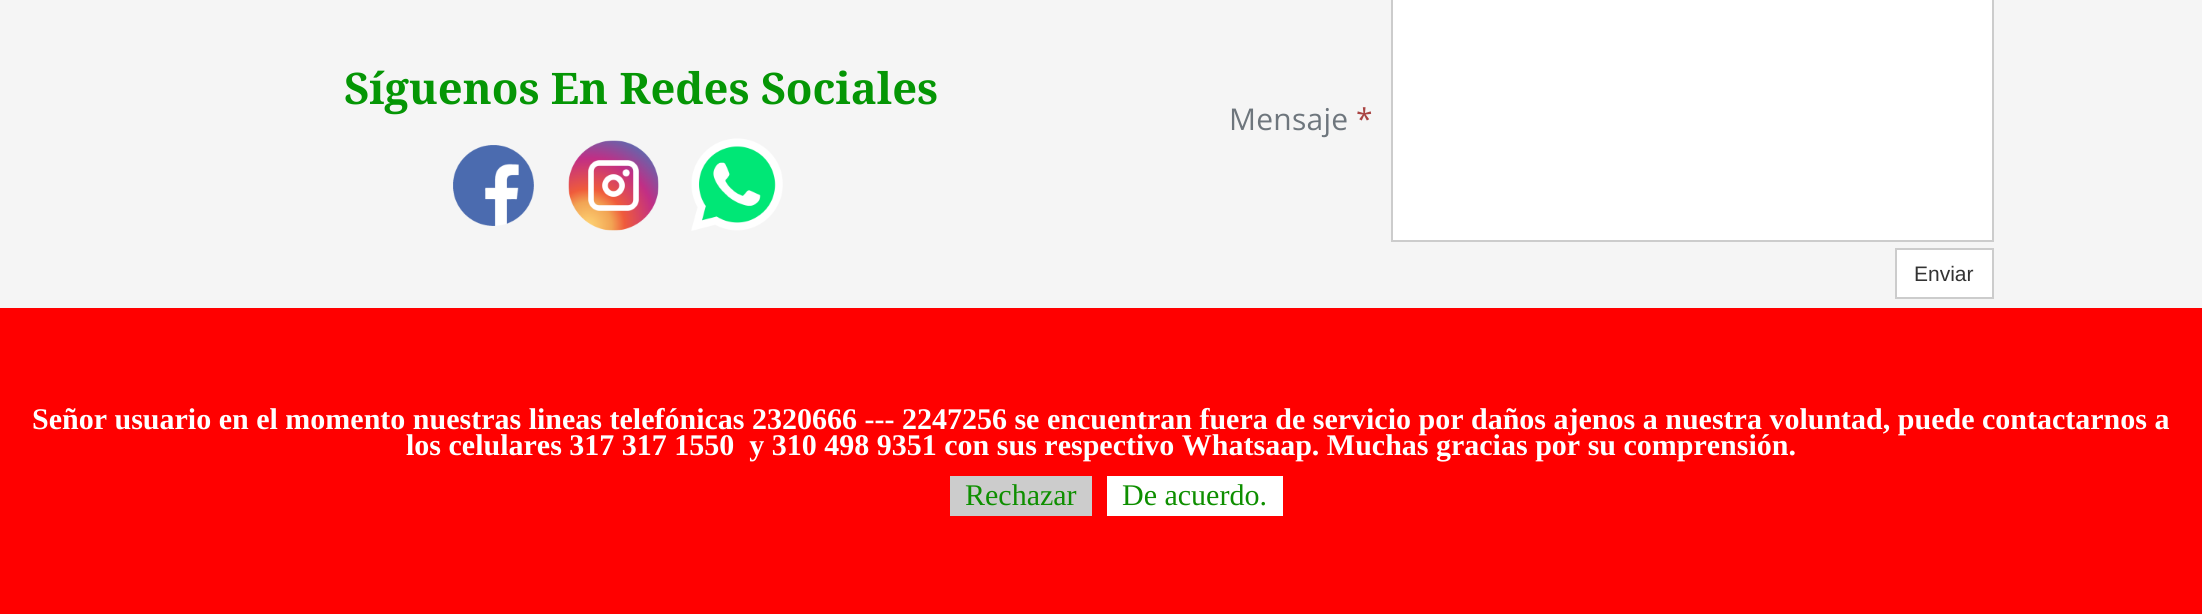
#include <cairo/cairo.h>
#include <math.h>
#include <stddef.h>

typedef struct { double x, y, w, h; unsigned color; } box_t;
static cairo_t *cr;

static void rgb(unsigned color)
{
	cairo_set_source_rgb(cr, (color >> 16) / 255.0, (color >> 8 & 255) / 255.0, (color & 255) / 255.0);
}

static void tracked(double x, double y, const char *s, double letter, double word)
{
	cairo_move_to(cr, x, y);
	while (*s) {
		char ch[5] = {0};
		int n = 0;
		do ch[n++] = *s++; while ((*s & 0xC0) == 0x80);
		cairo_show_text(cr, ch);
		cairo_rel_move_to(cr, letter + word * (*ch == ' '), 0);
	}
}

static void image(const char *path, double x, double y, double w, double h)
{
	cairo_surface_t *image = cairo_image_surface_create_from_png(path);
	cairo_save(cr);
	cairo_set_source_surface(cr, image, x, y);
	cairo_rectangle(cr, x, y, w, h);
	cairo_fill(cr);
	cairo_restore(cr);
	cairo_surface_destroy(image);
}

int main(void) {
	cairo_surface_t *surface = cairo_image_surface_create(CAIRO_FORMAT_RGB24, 2202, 614);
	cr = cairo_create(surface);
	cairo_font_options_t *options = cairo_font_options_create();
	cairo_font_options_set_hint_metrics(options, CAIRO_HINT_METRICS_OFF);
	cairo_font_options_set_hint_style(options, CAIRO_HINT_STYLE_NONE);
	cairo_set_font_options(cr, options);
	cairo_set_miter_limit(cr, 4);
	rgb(0xf5f5f5);
	cairo_paint(cr);
	image("img/1.png", 453, 145, 81, 81);
	image("img/2.png", 568, 140, 91, 91);
	image("img/3.png", 691, 138, 92, 93);
	rgb(0xffffff);
	cairo_rectangle(cr, 1392, -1, 601, 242);
	cairo_fill_preserve(cr);
	rgb(0xcccccc);
	cairo_stroke(cr);
	rgb(0xffffff);
	cairo_rectangle(cr, 1896, 249, 97, 49);
	cairo_fill_preserve(cr);
	rgb(0xcccccc);
	cairo_stroke(cr);
	{
		static const box_t items[] = {
			{0, 308, 2202, 306, 0xff0000},
			{950, 476, 142, 40, 0xcccccc},
			{1107, 476, 176, 40, 0xffffff},
		};
		for (size_t i = 0; i < sizeof items / sizeof *items; i++) {
			rgb(items[i].color);
			cairo_rectangle(cr, items[i].x, items[i].y, items[i].w, items[i].h);
			cairo_fill(cr);
		}
	}
	cairo_select_font_face(cr, "Noto Serif", CAIRO_FONT_SLANT_NORMAL, CAIRO_FONT_WEIGHT_BOLD);
	cairo_set_font_size(cr, 43.5);
	rgb(0x059605);
	cairo_move_to(cr, 344, 104);
	cairo_show_text(cr, "Síguenos En Redes Sociales");
	cairo_select_font_face(cr, "Open Sans", CAIRO_FONT_SLANT_NORMAL, CAIRO_FONT_WEIGHT_NORMAL);
	cairo_set_font_size(cr, 30);
	rgb(0x6e767d);
	tracked(1229, 130, "Mensaje", 0.25, 0);
	rgb(0xa94442);
	tracked(1356, 130, "*", 0.25, 0);
	cairo_select_font_face(cr, "Liberation Sans", CAIRO_FONT_SLANT_NORMAL, CAIRO_FONT_WEIGHT_NORMAL);
	cairo_set_font_size(cr, 21);
	rgb(0x333333);
	cairo_move_to(cr, 1914, 281);
	cairo_show_text(cr, "Enviar");
	cairo_select_font_face(cr, "Liberation Serif", CAIRO_FONT_SLANT_NORMAL, CAIRO_FONT_WEIGHT_BOLD);
	cairo_set_font_size(cr, 30);
	rgb(0xffffff);
	cairo_move_to(cr, 32, 429);
	cairo_show_text(cr, "Señor usuario en el momento nuestras lineas telefónicas 2320666 --- 2247256 se encuentran fuera de servicio por daños ajenos a nuestra voluntad, puede contactarnos a");
	cairo_move_to(cr, 406, 455);
	cairo_show_text(cr, "los celulares 317 317 1550  y 310 498 9351 con sus respectivo Whatsaap. Muchas gracias por su comprensión.");
	cairo_select_font_face(cr, "Liberation Serif", CAIRO_FONT_SLANT_NORMAL, CAIRO_FONT_WEIGHT_NORMAL);
	rgb(0x0e8f00);
	cairo_move_to(cr, 965, 505);
	cairo_show_text(cr, "Rechazar");
	cairo_move_to(cr, 1122, 505);
	cairo_show_text(cr, "De acuerdo.");
	cairo_surface_write_to_png(surface, "page.png");
	cairo_font_options_destroy(options);
	cairo_destroy(cr);
	cairo_surface_destroy(surface);
	return 0;
}
